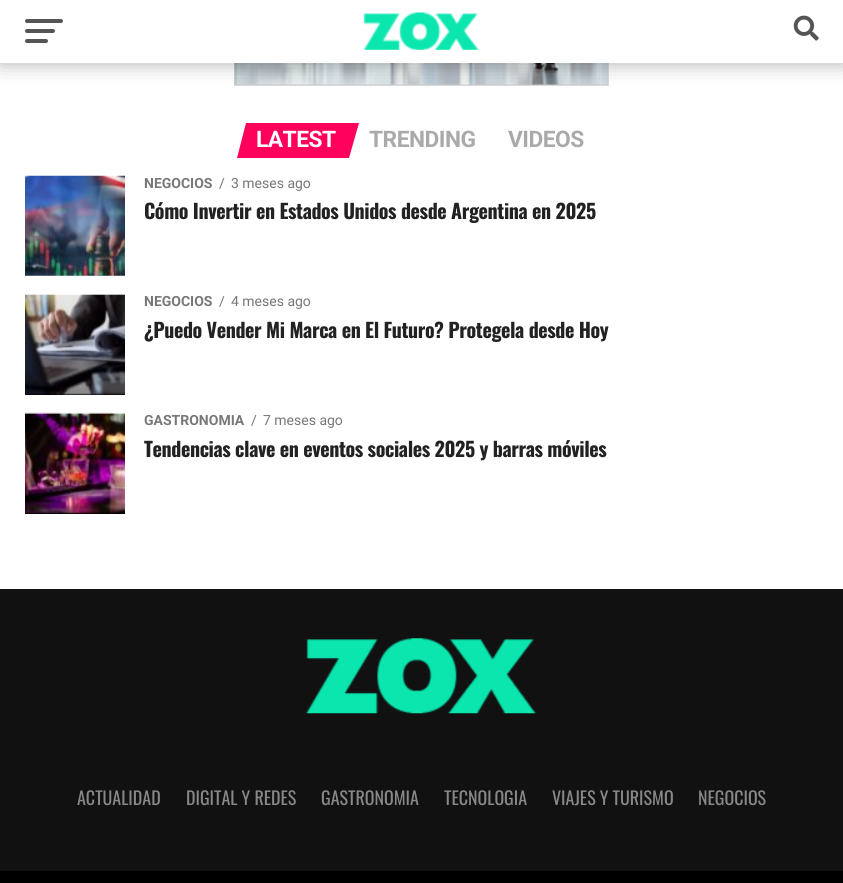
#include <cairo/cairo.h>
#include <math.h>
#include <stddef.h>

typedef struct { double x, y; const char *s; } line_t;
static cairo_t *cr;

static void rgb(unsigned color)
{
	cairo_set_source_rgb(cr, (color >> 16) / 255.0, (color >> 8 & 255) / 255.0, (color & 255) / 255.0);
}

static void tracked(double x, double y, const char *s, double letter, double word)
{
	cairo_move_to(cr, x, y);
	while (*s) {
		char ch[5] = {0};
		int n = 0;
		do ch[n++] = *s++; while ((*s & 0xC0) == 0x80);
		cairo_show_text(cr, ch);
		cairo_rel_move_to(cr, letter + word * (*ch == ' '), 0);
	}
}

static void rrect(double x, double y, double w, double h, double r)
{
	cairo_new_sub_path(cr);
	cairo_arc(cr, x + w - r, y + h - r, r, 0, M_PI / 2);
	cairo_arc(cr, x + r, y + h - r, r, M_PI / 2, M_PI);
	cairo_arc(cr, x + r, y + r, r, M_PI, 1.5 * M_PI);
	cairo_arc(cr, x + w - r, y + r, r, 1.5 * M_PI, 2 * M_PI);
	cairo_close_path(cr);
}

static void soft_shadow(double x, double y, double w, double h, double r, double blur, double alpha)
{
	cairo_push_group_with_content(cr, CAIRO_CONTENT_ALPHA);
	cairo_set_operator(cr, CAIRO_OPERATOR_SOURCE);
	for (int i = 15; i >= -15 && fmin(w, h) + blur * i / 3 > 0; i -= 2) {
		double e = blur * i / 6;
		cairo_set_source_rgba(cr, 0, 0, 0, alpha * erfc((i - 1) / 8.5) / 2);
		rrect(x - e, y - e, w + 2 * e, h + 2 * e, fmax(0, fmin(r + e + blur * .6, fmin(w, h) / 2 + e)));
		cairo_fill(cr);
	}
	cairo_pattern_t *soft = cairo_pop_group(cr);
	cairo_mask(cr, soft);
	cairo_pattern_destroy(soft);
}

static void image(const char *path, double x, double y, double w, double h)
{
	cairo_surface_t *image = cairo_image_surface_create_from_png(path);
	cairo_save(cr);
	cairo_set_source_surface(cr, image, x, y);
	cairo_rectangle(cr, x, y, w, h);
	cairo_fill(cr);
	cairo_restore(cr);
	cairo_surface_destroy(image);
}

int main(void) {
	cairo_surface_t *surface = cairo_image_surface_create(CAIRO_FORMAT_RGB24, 843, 883);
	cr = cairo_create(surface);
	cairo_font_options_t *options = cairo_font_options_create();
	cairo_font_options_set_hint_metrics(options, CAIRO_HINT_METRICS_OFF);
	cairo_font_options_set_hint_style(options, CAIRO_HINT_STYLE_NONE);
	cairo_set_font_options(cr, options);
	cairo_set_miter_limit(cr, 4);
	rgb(0xffffff);
	cairo_paint(cr);
	image("img/3.png", 234, 63, 375, 23);
	rgb(0x000000);
	soft_shadow(0, 1, 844, 63, 0, 10, 0.3);
	rgb(0xffffff);
	cairo_rectangle(cr, 0, 0, 843, 63);
	cairo_fill(cr);
	rgb(0x555555);
	rrect(25, 19, 38, 4, 2);
	cairo_fill(cr);
	rrect(25, 29, 30, 4, 2);
	cairo_fill(cr);
	rrect(25, 39, 23, 4, 2);
	cairo_fill(cr);
	image("img/1.png", 363, 12, 116, 38);
	image("img/2.png", 793, 15, 26, 26);
	rgb(0xff005b);
	cairo_new_path(cr);
	cairo_move_to(cr, 246, 123);
	cairo_line_to(cr, 359, 123);
	cairo_line_to(cr, 349, 158);
	cairo_line_to(cr, 237, 158);
	cairo_close_path(cr);
	cairo_fill(cr);
	image("img/4.png", 25, 175, 100, 101);
	rgb(0x000000);
	cairo_rectangle(cr, 25, 393, 100, 2);
	cairo_fill(cr);
	image("img/5.png", 25, 294, 100, 101);
	cairo_rectangle(cr, 25, 512, 100, 2);
	cairo_fill(cr);
	image("img/6.png", 25, 412, 100, 102);
	rgb(0x111111);
	cairo_rectangle(cr, 0, 589, 843, 282);
	cairo_fill(cr);
	image("img/7.png", 306, 638, 231, 76);
	rgb(0x000000);
	cairo_rectangle(cr, 0, 871, 843, 12);
	cairo_fill(cr);
	cairo_select_font_face(cr, "Roboto", CAIRO_FONT_SLANT_NORMAL, CAIRO_FONT_WEIGHT_BOLD);
	cairo_set_font_size(cr, 22.75);
	rgb(0xffffff);
	tracked(256, 147, "LATEST", -0.5, 0);
	rgb(0xaaaaaa);
	tracked(369, 147, "TRENDING", -0.5, 0);
	tracked(508, 147, "VIDEOS", -0.5, 0);
	cairo_set_font_size(cr, 14);
	rgb(0x777777);
	cairo_move_to(cr, 144, 188);
	cairo_show_text(cr, "NEGOCIOS");
	cairo_select_font_face(cr, "Roboto", CAIRO_FONT_SLANT_NORMAL, CAIRO_FONT_WEIGHT_NORMAL);
	cairo_move_to(cr, 219, 188);
	cairo_show_text(cr, "/");
	cairo_move_to(cr, 231, 188);
	cairo_show_text(cr, "3 meses ago");
	cairo_select_font_face(cr, "Oswald", CAIRO_FONT_SLANT_NORMAL, CAIRO_FONT_WEIGHT_BOLD);
	cairo_set_font_size(cr, 20);
	rgb(0x222222);
	tracked(144, 219, "Cómo Invertir en Estados Unidos desde Argentina en 2025", -0.4, 0);
	cairo_select_font_face(cr, "Roboto", CAIRO_FONT_SLANT_NORMAL, CAIRO_FONT_WEIGHT_BOLD);
	cairo_set_font_size(cr, 14);
	rgb(0x777777);
	cairo_move_to(cr, 144, 306);
	cairo_show_text(cr, "NEGOCIOS");
	cairo_select_font_face(cr, "Roboto", CAIRO_FONT_SLANT_NORMAL, CAIRO_FONT_WEIGHT_NORMAL);
	cairo_move_to(cr, 219, 306);
	cairo_show_text(cr, "/");
	cairo_move_to(cr, 231, 306);
	cairo_show_text(cr, "4 meses ago");
	cairo_select_font_face(cr, "Oswald", CAIRO_FONT_SLANT_NORMAL, CAIRO_FONT_WEIGHT_BOLD);
	cairo_set_font_size(cr, 20);
	rgb(0x222222);
	tracked(144, 338, "¿Puedo Vender Mi Marca en El Futuro? Protegela desde Hoy", -0.4, 0);
	cairo_select_font_face(cr, "Roboto", CAIRO_FONT_SLANT_NORMAL, CAIRO_FONT_WEIGHT_BOLD);
	cairo_set_font_size(cr, 14);
	rgb(0x777777);
	cairo_move_to(cr, 144, 425);
	cairo_show_text(cr, "GASTRONOMIA");
	cairo_select_font_face(cr, "Roboto", CAIRO_FONT_SLANT_NORMAL, CAIRO_FONT_WEIGHT_NORMAL);
	cairo_move_to(cr, 251, 425);
	cairo_show_text(cr, "/");
	cairo_move_to(cr, 263, 425);
	cairo_show_text(cr, "7 meses ago");
	cairo_select_font_face(cr, "Oswald", CAIRO_FONT_SLANT_NORMAL, CAIRO_FONT_WEIGHT_BOLD);
	cairo_set_font_size(cr, 20);
	rgb(0x222222);
	tracked(144, 457, "Tendencias clave en eventos sociales 2025 y barras móviles", -0.4, 0);
	cairo_select_font_face(cr, "Oswald", CAIRO_FONT_SLANT_NORMAL, CAIRO_FONT_WEIGHT_NORMAL);
	cairo_set_font_size(cr, 18);
	rgb(0x888888);
	{
		static const line_t items[] = {
			{77, 805, "ACTUALIDAD"},
			{186, 805, "DIGITAL Y REDES"},
			{321, 805, "GASTRONOMIA"},
			{444, 805, "TECNOLOGIA"},
			{552, 805, "VIAJES Y TURISMO"},
			{698, 805, "NEGOCIOS"},
		};
		for (size_t i = 0; i < sizeof items / sizeof *items; i++) {
			cairo_move_to(cr, items[i].x, items[i].y);
			cairo_show_text(cr, items[i].s);
		}
	}
	cairo_surface_write_to_png(surface, "page.png");
	cairo_font_options_destroy(options);
	cairo_destroy(cr);
	cairo_surface_destroy(surface);
	return 0;
}
